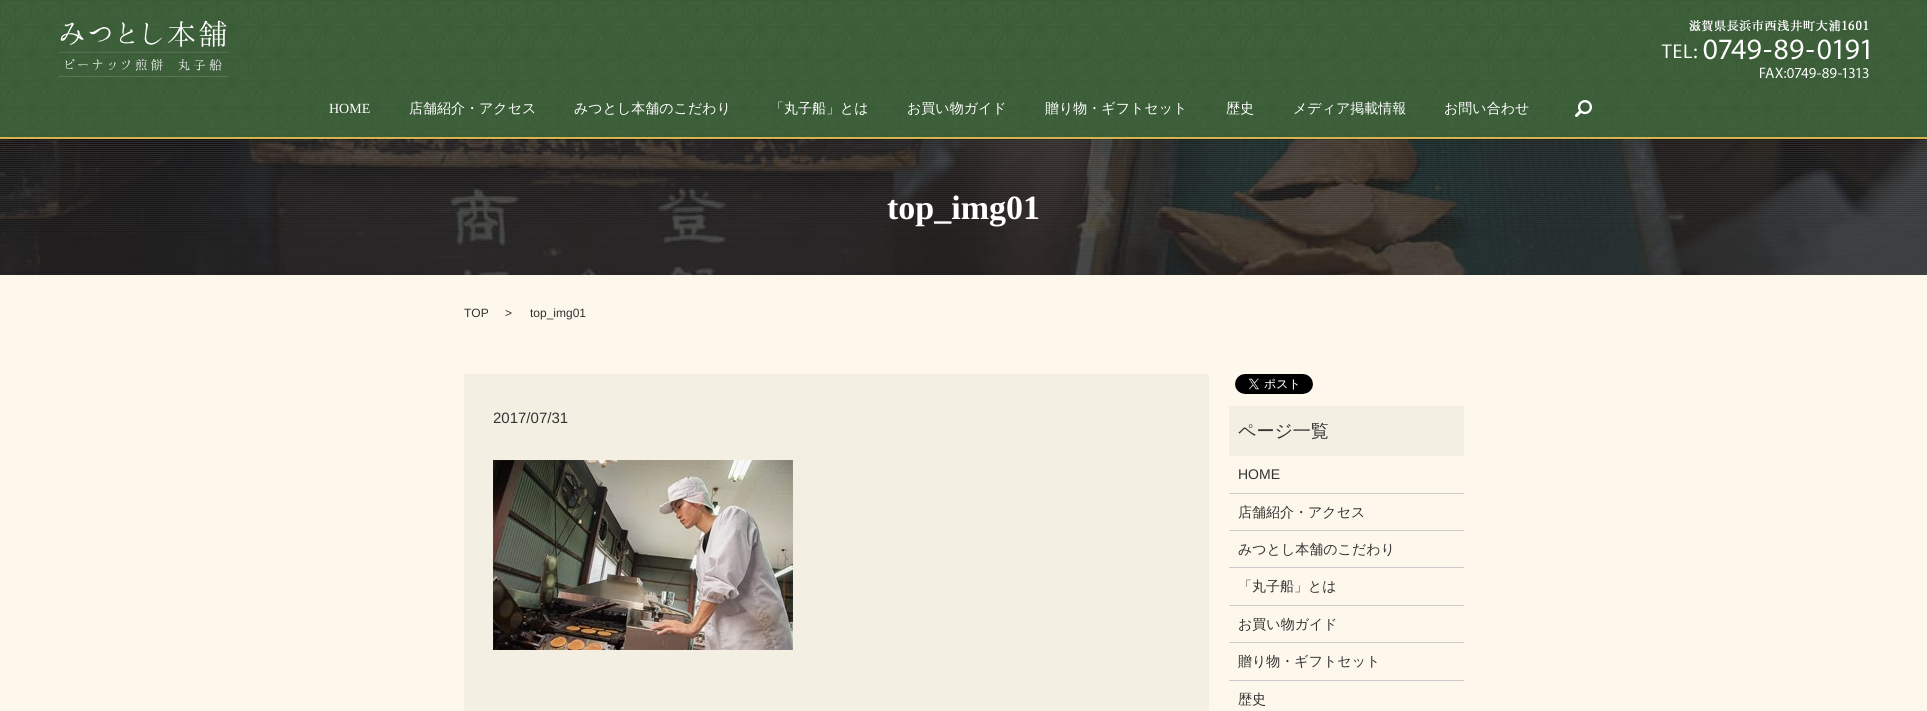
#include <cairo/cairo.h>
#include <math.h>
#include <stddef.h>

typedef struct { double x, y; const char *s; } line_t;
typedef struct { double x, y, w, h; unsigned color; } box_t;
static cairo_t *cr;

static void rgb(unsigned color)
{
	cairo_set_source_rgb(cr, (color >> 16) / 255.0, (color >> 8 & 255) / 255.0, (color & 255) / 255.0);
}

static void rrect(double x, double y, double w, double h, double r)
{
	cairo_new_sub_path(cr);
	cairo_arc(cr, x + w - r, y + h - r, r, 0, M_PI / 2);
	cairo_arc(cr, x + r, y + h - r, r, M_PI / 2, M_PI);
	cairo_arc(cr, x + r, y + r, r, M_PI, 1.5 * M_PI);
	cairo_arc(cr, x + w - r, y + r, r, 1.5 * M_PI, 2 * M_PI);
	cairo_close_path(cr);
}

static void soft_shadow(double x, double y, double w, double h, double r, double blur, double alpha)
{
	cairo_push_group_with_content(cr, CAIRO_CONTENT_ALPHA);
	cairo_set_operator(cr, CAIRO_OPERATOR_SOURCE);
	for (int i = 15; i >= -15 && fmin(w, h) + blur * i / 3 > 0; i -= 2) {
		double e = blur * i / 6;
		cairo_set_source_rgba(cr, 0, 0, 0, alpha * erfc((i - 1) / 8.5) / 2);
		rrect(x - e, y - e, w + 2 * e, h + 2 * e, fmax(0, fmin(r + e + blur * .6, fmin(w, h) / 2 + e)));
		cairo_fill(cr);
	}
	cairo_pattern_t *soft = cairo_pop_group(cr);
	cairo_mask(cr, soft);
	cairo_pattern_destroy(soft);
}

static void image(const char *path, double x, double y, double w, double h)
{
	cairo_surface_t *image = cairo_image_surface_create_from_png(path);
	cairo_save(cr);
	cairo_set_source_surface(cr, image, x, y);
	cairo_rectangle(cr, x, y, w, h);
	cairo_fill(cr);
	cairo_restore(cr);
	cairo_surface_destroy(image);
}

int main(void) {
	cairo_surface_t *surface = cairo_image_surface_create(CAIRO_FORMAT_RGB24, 1927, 711);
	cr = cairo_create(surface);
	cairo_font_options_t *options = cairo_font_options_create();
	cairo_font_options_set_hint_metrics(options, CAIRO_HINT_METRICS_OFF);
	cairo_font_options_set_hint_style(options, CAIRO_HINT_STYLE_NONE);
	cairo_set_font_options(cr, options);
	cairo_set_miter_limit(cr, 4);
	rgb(0xfdf7ec);
	cairo_paint(cr);
	image("img/5.png", 0, 139, 1927, 136);
	rgb(0x000000);
	soft_shadow(0, 1, 1927, 139, 0, 0.5, 0.1);
	image("img/1.png", 0, 0, 1927, 137);
	rgb(0xd8b451);
	cairo_rectangle(cr, 0, 137, 1927, 2);
	cairo_fill(cr);
	image("img/2.png", 58, 20, 170, 57);
	image("img/3.png", 1661, 20, 208, 58);
	image("img/4.png", 1575, 100, 17, 17);
	rgb(0xf3f0e3);
	cairo_rectangle(cr, 464, 374, 745, 337);
	cairo_fill(cr);
	image("img/6.png", 493, 460, 300, 190);
	image("img/7.png", 1235, 374, 78, 20);
	{
		static const box_t items[] = {
			{1229, 406, 235, 50, 0xf3efe3},
			{1229, 493, 235, 1, 0xcccccc},
			{1229, 530, 235, 1, 0xcccccc},
			{1229, 567, 235, 1, 0xcccccc},
			{1229, 605, 235, 1, 0xcccccc},
			{1229, 642, 235, 1, 0xcccccc},
			{1229, 680, 235, 1, 0xcccccc},
		};
		for (size_t i = 0; i < sizeof items / sizeof *items; i++) {
			rgb(items[i].color);
			cairo_rectangle(cr, items[i].x, items[i].y, items[i].w, items[i].h);
			cairo_fill(cr);
		}
	}
	cairo_select_font_face(cr, "Liberation Serif", CAIRO_FONT_SLANT_NORMAL, CAIRO_FONT_WEIGHT_NORMAL);
	cairo_set_font_size(cr, 14);
	rgb(0xffffff);
	cairo_move_to(cr, 329, 113);
	cairo_show_text(cr, "HOME");
	cairo_select_font_face(cr, "WenQuanYi Zen Hei Medium", CAIRO_FONT_SLANT_NORMAL, CAIRO_FONT_WEIGHT_NORMAL);
	{
		static const line_t items[] = {
			{409, 113, "店舗紹介・アクセス"},
			{574, 113, "みつとし本舗のこだわり"},
			{770, 113, "「丸子船」とは"},
			{907, 113, "お買い物ガイド"},
			{1045, 113, "贈り物・ギフトセット"},
			{1226, 113, "歴史"},
			{1293, 113, "メディア掲載情報"},
			{1444, 113, "お問い合わせ"},
		};
		for (size_t i = 0; i < sizeof items / sizeof *items; i++) {
			cairo_move_to(cr, items[i].x, items[i].y);
			cairo_show_text(cr, items[i].s);
		}
	}
	cairo_select_font_face(cr, "Liberation Serif", CAIRO_FONT_SLANT_NORMAL, CAIRO_FONT_WEIGHT_BOLD);
	cairo_set_font_size(cr, 34);
	cairo_move_to(cr, 887, 219);
	cairo_show_text(cr, "top_img01");
	cairo_select_font_face(cr, "Liberation Sans", CAIRO_FONT_SLANT_NORMAL, CAIRO_FONT_WEIGHT_NORMAL);
	cairo_set_font_size(cr, 12);
	rgb(0x333333);
	{
		static const line_t items[] = {
			{464, 317, "TOP"},
			{505, 317, ">"},
			{530, 317, "top_img01"},
		};
		for (size_t i = 0; i < sizeof items / sizeof *items; i++) {
			cairo_move_to(cr, items[i].x, items[i].y);
			cairo_show_text(cr, items[i].s);
		}
	}
	cairo_set_font_size(cr, 15);
	cairo_move_to(cr, 493, 423);
	cairo_show_text(cr, "2017/07/31");
	cairo_select_font_face(cr, "WenQuanYi Zen Hei Medium", CAIRO_FONT_SLANT_NORMAL, CAIRO_FONT_WEIGHT_NORMAL);
	cairo_set_font_size(cr, 18);
	cairo_move_to(cr, 1238, 437);
	cairo_show_text(cr, "ページ一覧");
	cairo_select_font_face(cr, "Liberation Sans", CAIRO_FONT_SLANT_NORMAL, CAIRO_FONT_WEIGHT_NORMAL);
	cairo_set_font_size(cr, 14);
	cairo_move_to(cr, 1238, 479);
	cairo_show_text(cr, "HOME");
	cairo_select_font_face(cr, "WenQuanYi Zen Hei Medium", CAIRO_FONT_SLANT_NORMAL, CAIRO_FONT_WEIGHT_NORMAL);
	{
		static const line_t items[] = {
			{1238, 517, "店舗紹介・アクセス"},
			{1238, 554, "みつとし本舗のこだわり"},
			{1238, 591, "「丸子船」とは"},
			{1238, 629, "お買い物ガイド"},
			{1238, 666, "贈り物・ギフトセット"},
			{1238, 704, "歴史"},
		};
		for (size_t i = 0; i < sizeof items / sizeof *items; i++) {
			cairo_move_to(cr, items[i].x, items[i].y);
			cairo_show_text(cr, items[i].s);
		}
	}
	cairo_surface_write_to_png(surface, "page.png");
	cairo_font_options_destroy(options);
	cairo_destroy(cr);
	cairo_surface_destroy(surface);
	return 0;
}
